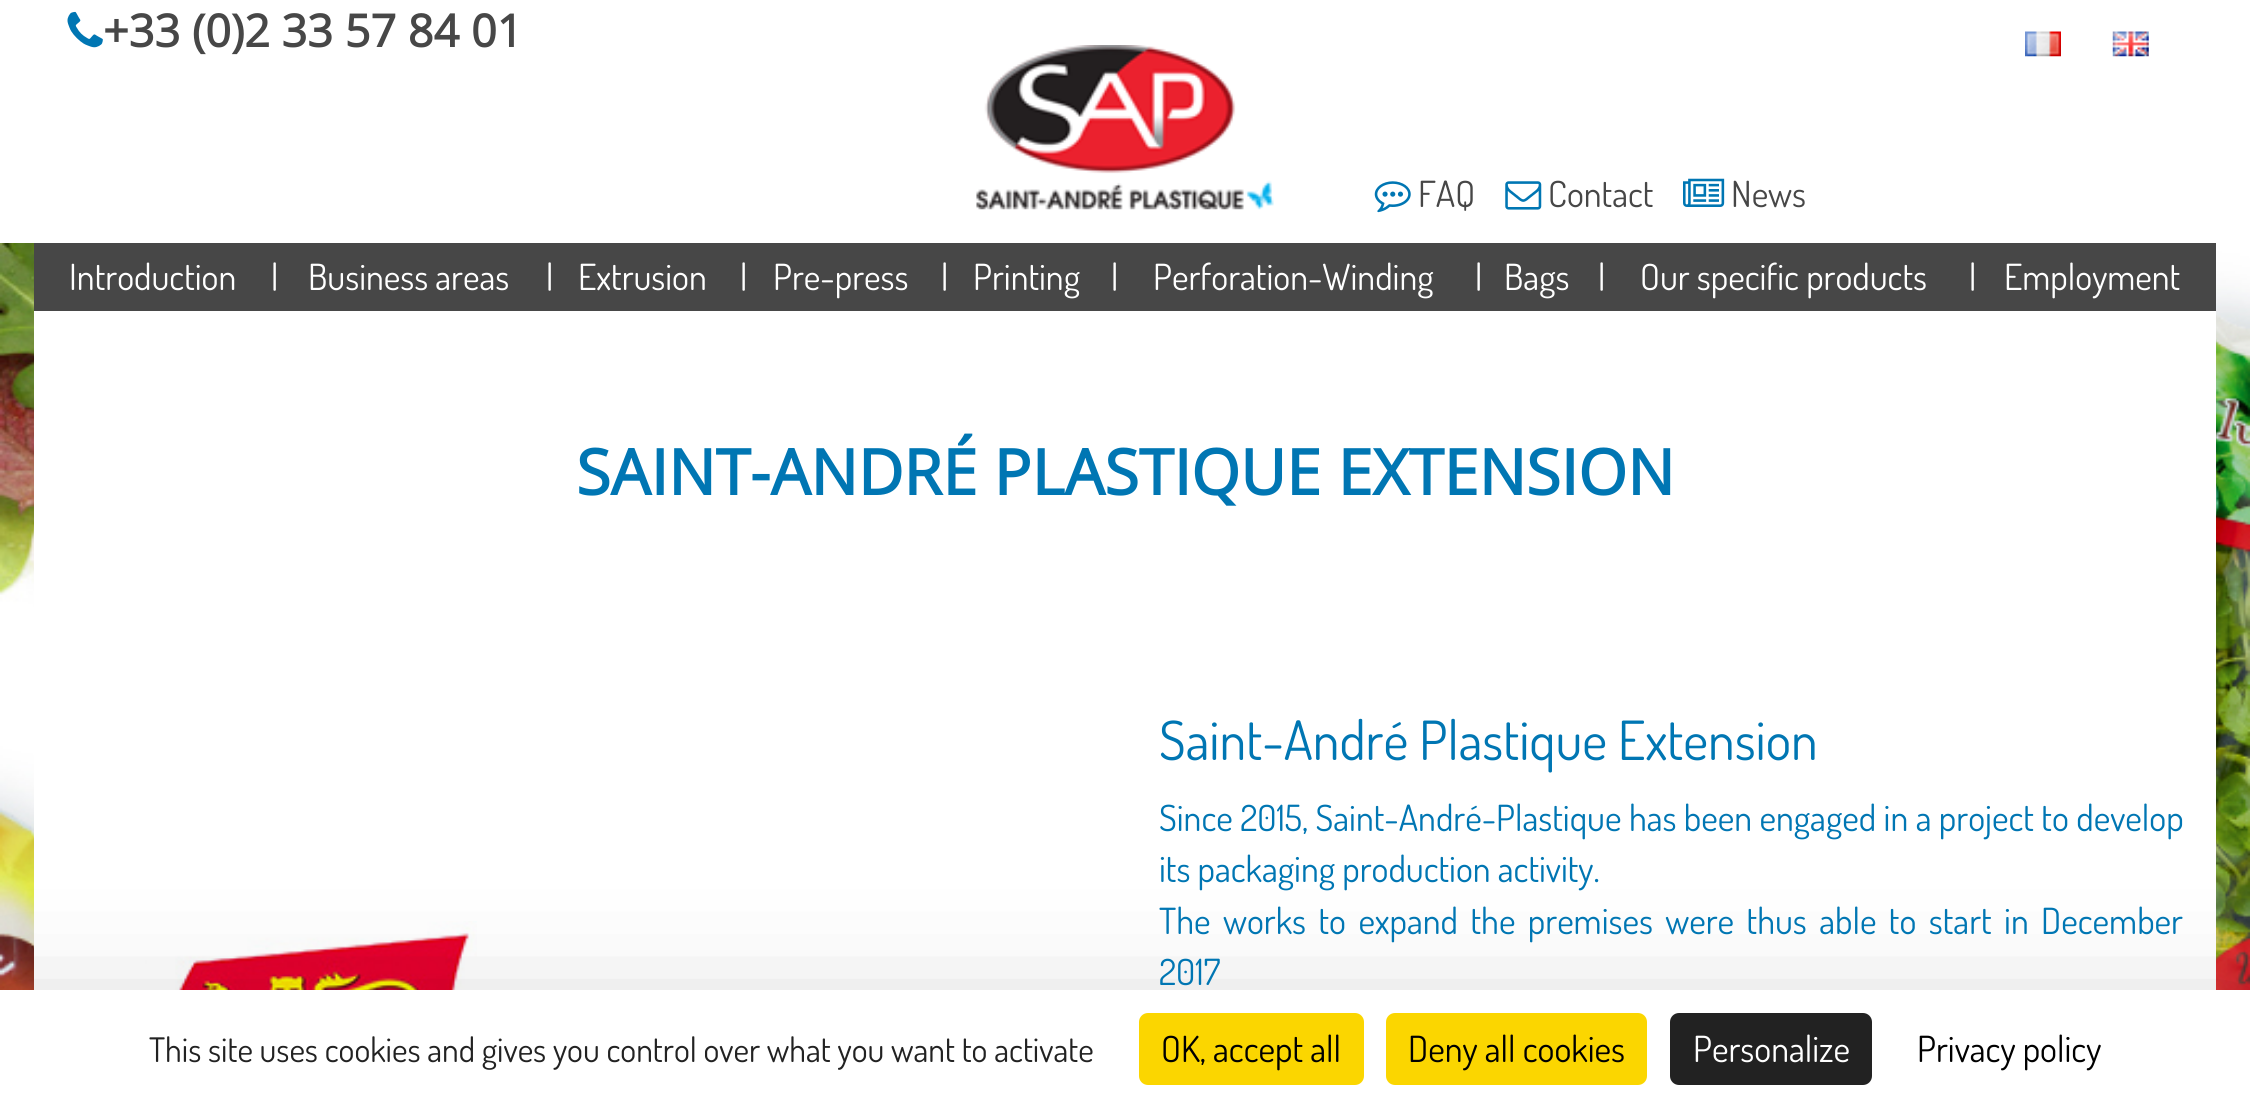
#include <cairo/cairo.h>
#include <math.h>
#include <stddef.h>

typedef struct { double x, y; const char *s; } line_t;
static cairo_t *cr;

static void rgb(unsigned color)
{
	cairo_set_source_rgb(cr, (color >> 16) / 255.0, (color >> 8 & 255) / 255.0, (color & 255) / 255.0);
}

static void tracked(double x, double y, const char *s, double letter, double word)
{
	cairo_move_to(cr, x, y);
	while (*s) {
		char ch[5] = {0};
		int n = 0;
		do ch[n++] = *s++; while ((*s & 0xC0) == 0x80);
		cairo_show_text(cr, ch);
		cairo_rel_move_to(cr, letter + word * (*ch == ' '), 0);
	}
}

static void rrect(double x, double y, double w, double h, double r)
{
	cairo_new_sub_path(cr);
	cairo_arc(cr, x + w - r, y + h - r, r, 0, M_PI / 2);
	cairo_arc(cr, x + r, y + h - r, r, M_PI / 2, M_PI);
	cairo_arc(cr, x + r, y + r, r, M_PI, 1.5 * M_PI);
	cairo_arc(cr, x + w - r, y + r, r, 1.5 * M_PI, 2 * M_PI);
	cairo_close_path(cr);
}

static void soft_shadow(double x, double y, double w, double h, double r, double blur, double alpha)
{
	cairo_push_group_with_content(cr, CAIRO_CONTENT_ALPHA);
	cairo_set_operator(cr, CAIRO_OPERATOR_SOURCE);
	for (int i = 15; i >= -15 && fmin(w, h) + blur * i / 3 > 0; i -= 2) {
		double e = blur * i / 6;
		cairo_set_source_rgba(cr, 0, 0, 0, alpha * erfc((i - 1) / 8.5) / 2);
		rrect(x - e, y - e, w + 2 * e, h + 2 * e, fmax(0, fmin(r + e + blur * .6, fmin(w, h) / 2 + e)));
		cairo_fill(cr);
	}
	cairo_pattern_t *soft = cairo_pop_group(cr);
	cairo_mask(cr, soft);
	cairo_pattern_destroy(soft);
}

static void image(const char *path, double x, double y, double w, double h)
{
	cairo_surface_t *image = cairo_image_surface_create_from_png(path);
	cairo_save(cr);
	cairo_set_source_surface(cr, image, x, y);
	cairo_rectangle(cr, x, y, w, h);
	cairo_fill(cr);
	cairo_restore(cr);
	cairo_surface_destroy(image);
}

int main(void) {
	cairo_surface_t *surface = cairo_image_surface_create(CAIRO_FORMAT_RGB24, 2250, 1107);
	cr = cairo_create(surface);
	cairo_font_options_t *options = cairo_font_options_create();
	cairo_font_options_set_hint_metrics(options, CAIRO_HINT_METRICS_OFF);
	cairo_font_options_set_hint_style(options, CAIRO_HINT_STYLE_NONE);
	cairo_set_font_options(cr, options);
	cairo_set_miter_limit(cr, 4);
	rgb(0xffffff);
	cairo_paint(cr);
	image("img/1.png", 67, 11, 36, 37);
	image("img/2.png", 976, 45, 298, 165);
	image("img/3.png", 2025, 31, 36, 26);
	image("img/4.png", 2112, 31, 37, 26);
	image("img/5.png", 1374, 181, 37, 32);
	image("img/6.png", 1505, 181, 37, 29);
	image("img/7.png", 1683, 178, 42, 29);
	image("img/8.png", 0, 243, 2250, 747);
	rgb(0x474747);
	cairo_rectangle(cr, 34, 243, 2182, 68);
	cairo_fill(cr);
	rgb(0xffffff);
	cairo_rectangle(cr, 34, 311, 2182, 679);
	cairo_fill(cr);
	image("img/9.png", 145, 921, 332, 69);
	rgb(0x000000);
	soft_shadow(0, 1035, 2250, 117, 0, 67.5, 0.25);
	rgb(0xffffff);
	cairo_rectangle(cr, 0, 990, 2250, 117);
	cairo_fill(cr);
	rgb(0xfbd600);
	rrect(1139, 1013, 225, 72, 9);
	cairo_fill(cr);
	rrect(1386, 1013, 261, 72, 9);
	cairo_fill(cr);
	rgb(0x222222);
	rrect(1670, 1013, 202, 72, 9);
	cairo_fill(cr);
	cairo_select_font_face(cr, "Open Sans", CAIRO_FONT_SLANT_NORMAL, CAIRO_FONT_WEIGHT_BOLD);
	cairo_set_font_size(cr, 45);
	rgb(0x474747);
	cairo_move_to(cr, 103, 47);
	cairo_show_text(cr, "+33 (0)2 33 57 84 01");
	cairo_select_font_face(cr, "Dosis", CAIRO_FONT_SLANT_NORMAL, CAIRO_FONT_WEIGHT_NORMAL);
	cairo_set_font_size(cr, 36);
	{
		static const line_t items[] = {
			{1418, 207, "FAQ"},
			{1548, 207, "Contact"},
			{1731, 207, "News"},
		};
		for (size_t i = 0; i < sizeof items / sizeof *items; i++) {
			cairo_move_to(cr, items[i].x, items[i].y);
			cairo_show_text(cr, items[i].s);
		}
	}
	rgb(0xffffff);
	{
		static const line_t items[] = {
			{69, 290, "Introduction"},
			{271, 290, "|"},
			{308, 290, "Business areas"},
			{546, 290, "|"},
			{578, 290, "Extrusion"},
			{740, 290, "|"},
			{773, 290, "Pre-press"},
			{941, 290, "|"},
			{973, 290, "Printing"},
			{1111, 290, "|"},
			{1153, 290, "Perforation-Winding"},
			{1475, 290, "|"},
			{1504, 290, "Bags"},
			{1598, 290, "|"},
			{1640, 290, "Our specific products"},
			{1969, 290, "|"},
			{2004, 290, "Employment"},
		};
		for (size_t i = 0; i < sizeof items / sizeof *items; i++) {
			cairo_move_to(cr, items[i].x, items[i].y);
			cairo_show_text(cr, items[i].s);
		}
	}
	cairo_select_font_face(cr, "Open Sans", CAIRO_FONT_SLANT_NORMAL, CAIRO_FONT_WEIGHT_BOLD);
	cairo_set_font_size(cr, 63);
	rgb(0x0076b3);
	cairo_move_to(cr, 576, 495);
	cairo_show_text(cr, "SAINT-ANDRÉ PLASTIQUE EXTENSION");
	cairo_select_font_face(cr, "Dosis", CAIRO_FONT_SLANT_NORMAL, CAIRO_FONT_WEIGHT_NORMAL);
	cairo_set_font_size(cr, 54);
	cairo_move_to(cr, 1159, 760);
	cairo_show_text(cr, "Saint-André Plastique Extension");
	cairo_set_font_size(cr, 36);
	tracked(1159, 831, "Since 2015, Saint-André-Plastique has been engaged in a project to develop", 0, 0.25);
	cairo_move_to(cr, 1159, 882);
	cairo_show_text(cr, "its packaging production activity.");
	tracked(1159, 934, "The works to expand the premises were thus able to start in December", 0, 5.25);
	cairo_move_to(cr, 1159, 985);
	cairo_show_text(cr, "2017");
	cairo_set_font_size(cr, 33.75);
	rgb(0x222222);
	cairo_move_to(cr, 149, 1062);
	cairo_show_text(cr, "This site uses cookies and gives you control over what you want to activate");
	cairo_set_font_size(cr, 36);
	rgb(0x000000);
	cairo_move_to(cr, 1161, 1062);
	cairo_show_text(cr, "OK, accept all");
	cairo_move_to(cr, 1408, 1062);
	cairo_show_text(cr, "Deny all cookies");
	rgb(0xffffff);
	cairo_move_to(cr, 1693, 1062);
	cairo_show_text(cr, "Personalize");
	rgb(0x000000);
	cairo_move_to(cr, 1917, 1062);
	cairo_show_text(cr, "Privacy policy");
	cairo_surface_write_to_png(surface, "page.png");
	cairo_font_options_destroy(options);
	cairo_destroy(cr);
	cairo_surface_destroy(surface);
	return 0;
}
